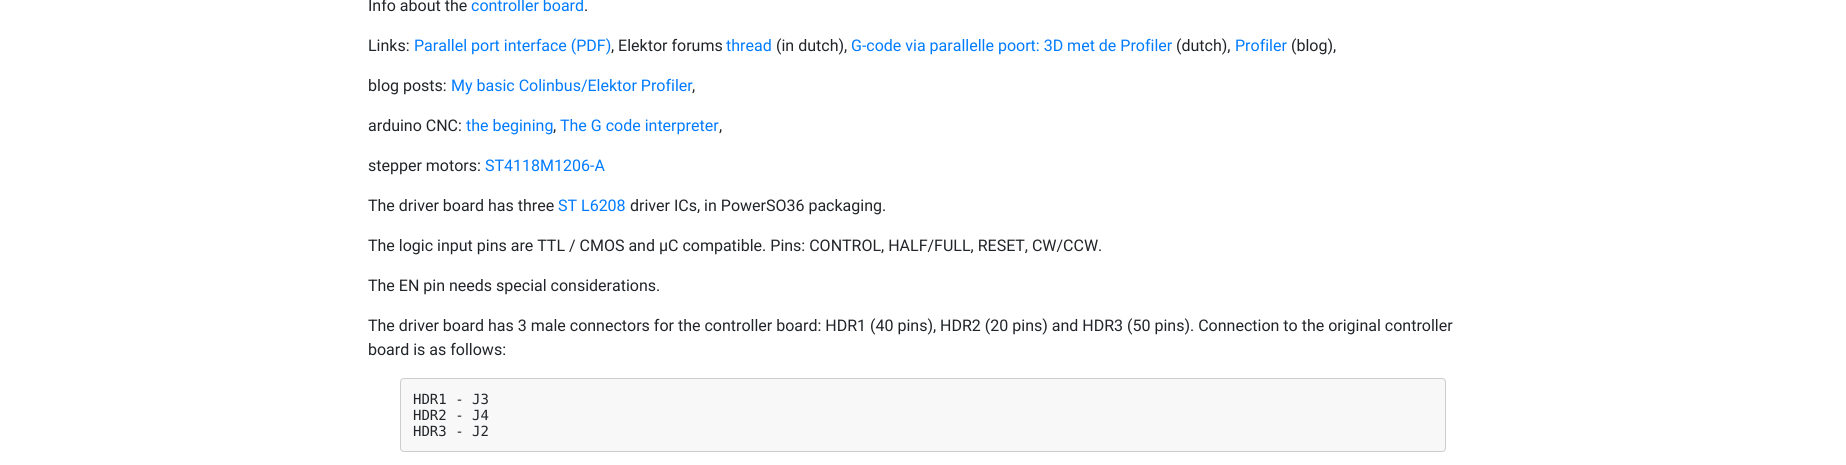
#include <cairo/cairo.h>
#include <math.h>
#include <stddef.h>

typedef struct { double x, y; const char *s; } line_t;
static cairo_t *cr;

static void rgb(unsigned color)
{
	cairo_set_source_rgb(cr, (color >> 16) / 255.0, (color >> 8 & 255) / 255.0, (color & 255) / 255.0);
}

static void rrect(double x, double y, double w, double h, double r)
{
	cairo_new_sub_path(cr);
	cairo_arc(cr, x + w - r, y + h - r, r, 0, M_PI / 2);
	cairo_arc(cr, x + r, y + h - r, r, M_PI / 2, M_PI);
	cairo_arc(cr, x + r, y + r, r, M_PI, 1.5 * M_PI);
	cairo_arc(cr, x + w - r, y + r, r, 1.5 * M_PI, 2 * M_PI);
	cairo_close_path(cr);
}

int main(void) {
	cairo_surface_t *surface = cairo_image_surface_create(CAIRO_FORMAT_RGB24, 1846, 465);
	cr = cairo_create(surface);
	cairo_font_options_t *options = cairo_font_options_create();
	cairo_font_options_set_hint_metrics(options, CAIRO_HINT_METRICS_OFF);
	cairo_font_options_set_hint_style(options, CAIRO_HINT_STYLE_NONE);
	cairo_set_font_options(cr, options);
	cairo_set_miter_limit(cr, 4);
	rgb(0xffffff);
	cairo_paint(cr);
	rgb(0xf8f8f8);
	rrect(400.5, 378.5, 1045, 73, 3.5);
	cairo_fill_preserve(cr);
	rgb(0xcccccc);
	cairo_set_line_width(cr, 1);
	cairo_stroke(cr);
	cairo_select_font_face(cr, "Roboto", CAIRO_FONT_SLANT_NORMAL, CAIRO_FONT_WEIGHT_NORMAL);
	cairo_set_font_size(cr, 16);
	rgb(0x212529);
	cairo_move_to(cr, 368, 11);
	cairo_show_text(cr, "Info about the");
	rgb(0x007bff);
	cairo_move_to(cr, 471, 11);
	cairo_show_text(cr, "controller board");
	rgb(0x212529);
	cairo_move_to(cr, 584, 11);
	cairo_show_text(cr, ".");
	cairo_move_to(cr, 368, 51);
	cairo_show_text(cr, "Links:");
	rgb(0x007bff);
	cairo_move_to(cr, 414, 51);
	cairo_show_text(cr, "Parallel port interface (PDF)");
	rgb(0x212529);
	cairo_move_to(cr, 611, 51);
	cairo_show_text(cr, ", Elektor forums");
	rgb(0x007bff);
	cairo_move_to(cr, 726, 51);
	cairo_show_text(cr, "thread");
	rgb(0x212529);
	cairo_move_to(cr, 776, 51);
	cairo_show_text(cr, "(in dutch),");
	rgb(0x007bff);
	cairo_move_to(cr, 851, 51);
	cairo_show_text(cr, "G-code via parallelle poort: 3D met de Profiler");
	rgb(0x212529);
	cairo_move_to(cr, 1176, 51);
	cairo_show_text(cr, "(dutch),");
	rgb(0x007bff);
	cairo_move_to(cr, 1235, 51);
	cairo_show_text(cr, "Profiler");
	rgb(0x212529);
	cairo_move_to(cr, 1291, 51);
	cairo_show_text(cr, "(blog),");
	cairo_move_to(cr, 368, 91);
	cairo_show_text(cr, "blog posts:");
	rgb(0x007bff);
	cairo_move_to(cr, 451, 91);
	cairo_show_text(cr, "My basic Colinbus/Elektor Profiler");
	rgb(0x212529);
	cairo_move_to(cr, 692, 91);
	cairo_show_text(cr, ",");
	cairo_move_to(cr, 368, 131);
	cairo_show_text(cr, "arduino CNC:");
	rgb(0x007bff);
	cairo_move_to(cr, 466, 131);
	cairo_show_text(cr, "the begining");
	rgb(0x212529);
	cairo_move_to(cr, 553, 131);
	cairo_show_text(cr, ",");
	rgb(0x007bff);
	cairo_move_to(cr, 560, 131);
	cairo_show_text(cr, "The G code interpreter");
	rgb(0x212529);
	cairo_move_to(cr, 719, 131);
	cairo_show_text(cr, ",");
	cairo_move_to(cr, 368, 171);
	cairo_show_text(cr, "stepper motors:");
	rgb(0x007bff);
	cairo_move_to(cr, 485, 171);
	cairo_show_text(cr, "ST4118M1206-A");
	rgb(0x212529);
	cairo_move_to(cr, 368, 211);
	cairo_show_text(cr, "The driver board has three");
	rgb(0x007bff);
	cairo_move_to(cr, 558, 211);
	cairo_show_text(cr, "ST L6208");
	rgb(0x212529);
	{
		static const line_t items[] = {
			{630, 211, "driver ICs, in PowerSO36 packaging."},
			{368, 251, "The logic input pins are TTL / CMOS and µC compatible. Pins: CONTROL, HALF/FULL, RESET, CW/CCW."},
			{368, 291, "The EN pin needs special considerations."},
			{368, 331, "The driver board has 3 male connectors for the controller board: HDR1 (40 pins), HDR2 (20 pins) and HDR3 (50 pins). Connection to the original controller"},
			{368, 355, "board is as follows:"},
		};
		for (size_t i = 0; i < sizeof items / sizeof *items; i++) {
			cairo_move_to(cr, items[i].x, items[i].y);
			cairo_show_text(cr, items[i].s);
		}
	}
	cairo_select_font_face(cr, "DejaVu Sans Mono", CAIRO_FONT_SLANT_NORMAL, CAIRO_FONT_WEIGHT_NORMAL);
	cairo_set_font_size(cr, 14);
	{
		static const line_t items[] = {
			{413, 404, "HDR1 - J3"},
			{413, 420, "HDR2 - J4"},
			{413, 436, "HDR3 - J2"},
		};
		for (size_t i = 0; i < sizeof items / sizeof *items; i++) {
			cairo_move_to(cr, items[i].x, items[i].y);
			cairo_show_text(cr, items[i].s);
		}
	}
	cairo_surface_write_to_png(surface, "page.png");
	cairo_font_options_destroy(options);
	cairo_destroy(cr);
	cairo_surface_destroy(surface);
	return 0;
}
